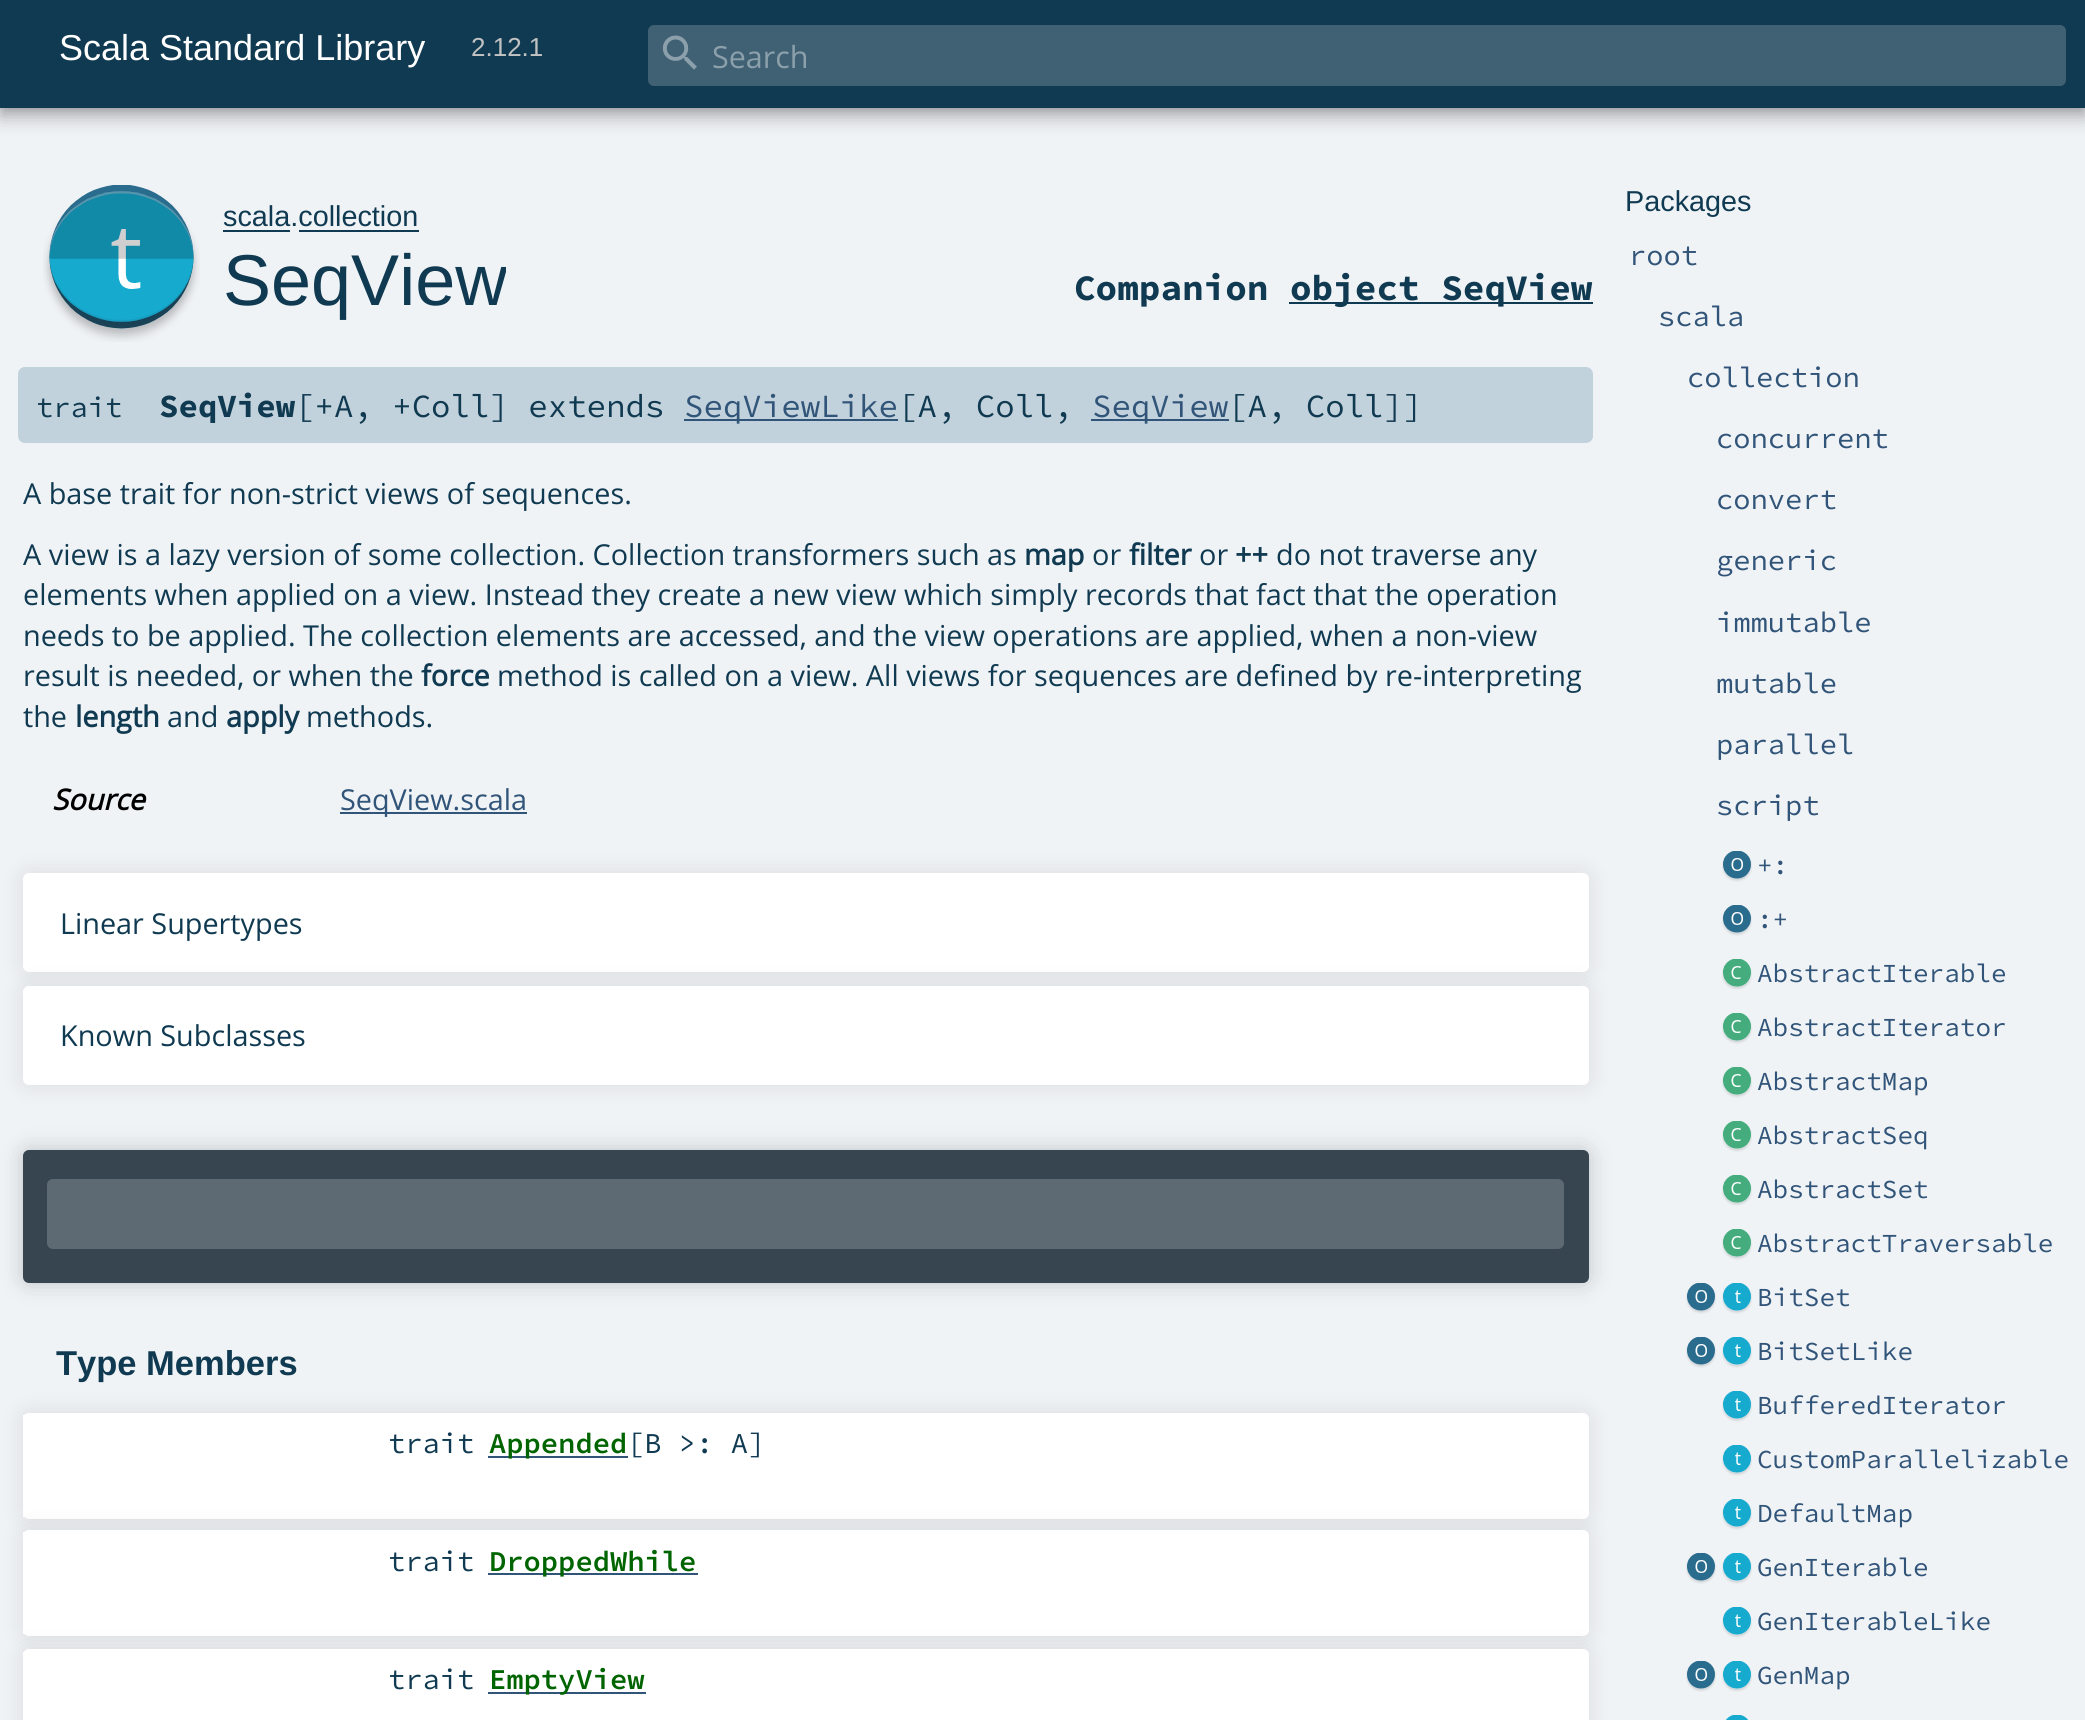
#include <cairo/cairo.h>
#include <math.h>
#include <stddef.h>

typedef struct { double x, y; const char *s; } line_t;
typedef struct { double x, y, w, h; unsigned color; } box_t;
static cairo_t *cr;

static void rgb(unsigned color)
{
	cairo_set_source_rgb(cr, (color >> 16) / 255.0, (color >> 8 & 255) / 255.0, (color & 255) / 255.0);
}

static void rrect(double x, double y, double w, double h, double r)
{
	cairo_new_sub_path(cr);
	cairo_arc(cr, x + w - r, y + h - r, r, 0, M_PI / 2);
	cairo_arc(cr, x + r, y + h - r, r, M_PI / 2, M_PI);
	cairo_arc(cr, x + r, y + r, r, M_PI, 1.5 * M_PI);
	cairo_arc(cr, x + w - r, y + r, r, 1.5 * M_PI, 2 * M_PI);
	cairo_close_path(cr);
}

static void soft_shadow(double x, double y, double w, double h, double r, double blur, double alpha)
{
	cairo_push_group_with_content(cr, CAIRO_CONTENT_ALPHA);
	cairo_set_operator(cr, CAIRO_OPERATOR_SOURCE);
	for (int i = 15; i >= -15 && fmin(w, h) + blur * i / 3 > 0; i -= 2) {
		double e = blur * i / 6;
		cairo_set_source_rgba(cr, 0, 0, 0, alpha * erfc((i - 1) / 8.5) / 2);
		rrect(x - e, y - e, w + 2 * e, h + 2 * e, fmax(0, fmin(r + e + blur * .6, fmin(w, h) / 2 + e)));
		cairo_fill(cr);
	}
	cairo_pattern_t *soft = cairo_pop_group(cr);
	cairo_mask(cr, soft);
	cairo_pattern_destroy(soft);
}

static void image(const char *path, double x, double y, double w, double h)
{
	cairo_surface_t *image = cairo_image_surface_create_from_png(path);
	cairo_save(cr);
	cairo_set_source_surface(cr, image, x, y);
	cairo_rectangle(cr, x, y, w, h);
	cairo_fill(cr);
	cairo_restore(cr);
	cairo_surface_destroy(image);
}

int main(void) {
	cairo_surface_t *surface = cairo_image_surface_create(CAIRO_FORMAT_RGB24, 2085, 1720);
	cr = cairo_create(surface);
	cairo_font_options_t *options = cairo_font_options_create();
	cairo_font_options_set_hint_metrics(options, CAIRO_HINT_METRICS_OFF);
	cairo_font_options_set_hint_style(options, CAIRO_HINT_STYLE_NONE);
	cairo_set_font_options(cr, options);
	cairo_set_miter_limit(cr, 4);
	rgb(0xf0f3f6);
	cairo_paint(cr);
	rgb(0x000000);
	soft_shadow(0, 9, 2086, 108, 0, 9, 0.28);
	soft_shadow(0, 0, 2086, 108, 0, 4.5, 0.18);
	rgb(0x103a51);
	cairo_rectangle(cr, 0, 0, 2085, 108);
	cairo_fill(cr);
	rgb(0x406174);
	rrect(648, 25, 1418, 61, 6);
	cairo_fill(cr);
	image("img/1.png", 662, 35, 35, 35);
	image("img/2.png", 43, 185, 157, 157);
	{
		static const box_t items[] = {
			{223, 230, 67, 2, 0x103a51},
			{299, 230, 120, 2, 0x103a51},
			{1289, 302, 304, 2, 0x103a51},
		};
		for (size_t i = 0; i < sizeof items / sizeof *items; i++) {
			rgb(items[i].color);
			cairo_rectangle(cr, items[i].x, items[i].y, items[i].w, items[i].h);
			cairo_fill(cr);
		}
	}
	rgb(0xc2d2dc);
	rrect(18, 367, 1575, 76, 7);
	cairo_fill(cr);
	{
		static const box_t items[] = {
			{684, 419, 214, 2, 0x315479},
			{1091, 419, 138, 2, 0x315479},
			{340, 812, 187, 2, 0x315479},
		};
		for (size_t i = 0; i < sizeof items / sizeof *items; i++) {
			rgb(items[i].color);
			cairo_rectangle(cr, items[i].x, items[i].y, items[i].w, items[i].h);
			cairo_fill(cr);
		}
	}
	rgb(0x000000);
	soft_shadow(23, 873, 1566, 99, 6, 11, 0.1);
	rgb(0xffffff);
	rrect(23, 873, 1566, 99, 6);
	cairo_fill(cr);
	rgb(0x000000);
	soft_shadow(23, 986, 1566, 99, 6, 11, 0.1);
	rgb(0xffffff);
	rrect(23, 986, 1566, 99, 6);
	cairo_fill(cr);
	rgb(0x000000);
	soft_shadow(23, 1150, 1566, 133, 6, 11, 0.2);
	rgb(0x364550);
	rrect(23, 1150, 1566, 133, 6);
	cairo_fill(cr);
	rgb(0x5e6a73);
	rrect(47, 1179, 1517, 70, 6);
	cairo_fill(cr);
	rgb(0x000000);
	soft_shadow(23, 1413, 1566, 106, 6, 11, 0.1);
	rgb(0xffffff);
	rrect(23, 1413, 1566, 106, 6);
	cairo_fill(cr);
	cairo_rectangle(cr, 23, 1415, 2, 102);
	cairo_fill(cr);
	rgb(0x315479);
	cairo_rectangle(cr, 488, 1456, 140, 2);
	cairo_fill(cr);
	rgb(0x000000);
	soft_shadow(23, 1530, 1566, 106, 6, 11, 0.1);
	rgb(0xffffff);
	rrect(23, 1530, 1566, 106, 6);
	cairo_fill(cr);
	cairo_rectangle(cr, 23, 1532, 2, 102);
	cairo_fill(cr);
	rgb(0x315479);
	cairo_rectangle(cr, 488, 1573, 210, 2);
	cairo_fill(cr);
	rgb(0x000000);
	soft_shadow(23, 1649, 1566, 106, 6, 11, 0.1);
	rgb(0xffffff);
	cairo_new_path(cr);
	cairo_move_to(cr, 29, 1649);
	cairo_line_to(cr, 1583, 1649);
	cairo_curve_to(cr, 1586.5, 1649, 1589, 1651.5, 1589, 1655);
	cairo_line_to(cr, 1589, 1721);
	cairo_line_to(cr, 23, 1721);
	cairo_line_to(cr, 23, 1655);
	cairo_curve_to(cr, 23, 1651.5, 25.5, 1649, 29, 1649);
	cairo_close_path(cr);
	cairo_fill(cr);
	cairo_rectangle(cr, 23, 1652, 1, 2);
	cairo_fill(cr);
	rgb(0x315479);
	cairo_rectangle(cr, 488, 1692, 158, 2);
	cairo_fill(cr);
	image("img/3.png", 1722, 851, 30, 31);
	image("img/3.png", 1722, 905, 30, 31);
	image("img/4.png", 1722, 959, 30, 31);
	image("img/4.png", 1722, 1013, 30, 31);
	image("img/4.png", 1722, 1067, 30, 31);
	image("img/4.png", 1722, 1121, 30, 31);
	image("img/4.png", 1722, 1175, 30, 31);
	image("img/4.png", 1722, 1229, 30, 31);
	image("img/3.png", 1686, 1283, 30, 31);
	image("img/5.png", 1722, 1283, 30, 31);
	image("img/3.png", 1686, 1337, 30, 31);
	image("img/5.png", 1722, 1337, 30, 31);
	image("img/5.png", 1722, 1391, 30, 31);
	image("img/5.png", 1722, 1445, 30, 31);
	image("img/6.png", 1722, 1499, 30, 31);
	image("img/3.png", 1686, 1553, 30, 31);
	image("img/5.png", 1722, 1553, 30, 31);
	image("img/5.png", 1722, 1607, 30, 31);
	image("img/3.png", 1686, 1661, 30, 31);
	image("img/5.png", 1722, 1661, 30, 31);
	image("img/7.png", 1726, 1715, 22, 5);
	cairo_select_font_face(cr, "Liberation Sans", CAIRO_FONT_SLANT_NORMAL, CAIRO_FONT_WEIGHT_NORMAL);
	cairo_set_font_size(cr, 36);
	rgb(0xffffff);
	cairo_move_to(cr, 59, 60);
	cairo_show_text(cr, "Scala Standard Library");
	cairo_set_font_size(cr, 26);
	rgb(0xc2c2c2);
	cairo_move_to(cr, 471, 56);
	cairo_show_text(cr, "2.12.1");
	cairo_select_font_face(cr, "Open Sans", CAIRO_FONT_SLANT_NORMAL, CAIRO_FONT_WEIGHT_NORMAL);
	cairo_set_font_size(cr, 30.5);
	rgb(0x8ca0ac);
	cairo_move_to(cr, 712, 68);
	cairo_show_text(cr, "Search");
	cairo_select_font_face(cr, "Liberation Sans", CAIRO_FONT_SLANT_NORMAL, CAIRO_FONT_WEIGHT_NORMAL);
	cairo_set_font_size(cr, 28.8);
	rgb(0x103a51);
	cairo_move_to(cr, 223, 226);
	cairo_show_text(cr, "scala.collection");
	cairo_save(cr);
	cairo_rectangle(cr, 223, 241, 283, 83);
	cairo_clip(cr);
	cairo_set_font_size(cr, 72);
	cairo_move_to(cr, 223, 305);
	cairo_show_text(cr, "SeqView");
	cairo_restore(cr);
	cairo_select_font_face(cr, "Source Code Pro", CAIRO_FONT_SLANT_NORMAL, CAIRO_FONT_WEIGHT_BOLD);
	cairo_set_font_size(cr, 36);
	cairo_move_to(cr, 1074, 300);
	cairo_show_text(cr, "Companion");
	cairo_move_to(cr, 1290, 300);
	cairo_show_text(cr, "object SeqView");
	cairo_select_font_face(cr, "Source Code Pro", CAIRO_FONT_SLANT_NORMAL, CAIRO_FONT_WEIGHT_NORMAL);
	cairo_set_font_size(cr, 28.8);
	cairo_move_to(cr, 36, 417);
	cairo_show_text(cr, "trait");
	cairo_select_font_face(cr, "Source Code Pro", CAIRO_FONT_SLANT_NORMAL, CAIRO_FONT_WEIGHT_BOLD);
	cairo_set_font_size(cr, 32.4);
	cairo_move_to(cr, 159, 417);
	cairo_show_text(cr, "SeqView");
	cairo_select_font_face(cr, "Source Code Pro", CAIRO_FONT_SLANT_NORMAL, CAIRO_FONT_WEIGHT_NORMAL);
	cairo_move_to(cr, 295, 417);
	cairo_show_text(cr, "[+A, +Coll] extends");
	rgb(0x315479);
	cairo_move_to(cr, 684, 417);
	cairo_show_text(cr, "SeqViewLike");
	rgb(0x103a51);
	cairo_move_to(cr, 898, 417);
	cairo_show_text(cr, "[A, Coll,");
	rgb(0x315479);
	cairo_move_to(cr, 1092, 417);
	cairo_show_text(cr, "SeqView");
	rgb(0x103a51);
	cairo_move_to(cr, 1228, 417);
	cairo_show_text(cr, "[A, Coll]]");
	cairo_select_font_face(cr, "Open Sans", CAIRO_FONT_SLANT_NORMAL, CAIRO_FONT_WEIGHT_NORMAL);
	cairo_set_font_size(cr, 28.8);
	cairo_move_to(cr, 23, 504);
	cairo_show_text(cr, "A base trait for non-strict views of sequences.");
	cairo_move_to(cr, 23, 565);
	cairo_show_text(cr, "A view is a lazy version of some collection. Collection transformers such as");
	cairo_select_font_face(cr, "Open Sans", CAIRO_FONT_SLANT_NORMAL, CAIRO_FONT_WEIGHT_BOLD);
	cairo_move_to(cr, 1024, 565);
	cairo_show_text(cr, "map");
	cairo_select_font_face(cr, "Open Sans", CAIRO_FONT_SLANT_NORMAL, CAIRO_FONT_WEIGHT_NORMAL);
	cairo_move_to(cr, 1092, 565);
	cairo_show_text(cr, "or");
	cairo_select_font_face(cr, "Open Sans", CAIRO_FONT_SLANT_NORMAL, CAIRO_FONT_WEIGHT_BOLD);
	cairo_move_to(cr, 1129, 565);
	cairo_show_text(cr, "filter");
	cairo_select_font_face(cr, "Open Sans", CAIRO_FONT_SLANT_NORMAL, CAIRO_FONT_WEIGHT_NORMAL);
	cairo_move_to(cr, 1199, 565);
	cairo_show_text(cr, "or");
	cairo_select_font_face(cr, "Open Sans", CAIRO_FONT_SLANT_NORMAL, CAIRO_FONT_WEIGHT_BOLD);
	cairo_move_to(cr, 1235, 565);
	cairo_show_text(cr, "++");
	cairo_select_font_face(cr, "Open Sans", CAIRO_FONT_SLANT_NORMAL, CAIRO_FONT_WEIGHT_NORMAL);
	{
		static const line_t items[] = {
			{1276, 565, "do not traverse any"},
			{23, 605, "elements when applied on a view. Instead they create a new view which simply records that fact that the operation"},
			{23, 646, "needs to be applied. The collection elements are accessed, and the view operations are applied,"},
			{1310, 646, "when a non-view"},
			{23, 686, "result is needed, or when the"},
		};
		for (size_t i = 0; i < sizeof items / sizeof *items; i++) {
			cairo_move_to(cr, items[i].x, items[i].y);
			cairo_show_text(cr, items[i].s);
		}
	}
	cairo_select_font_face(cr, "Open Sans", CAIRO_FONT_SLANT_NORMAL, CAIRO_FONT_WEIGHT_BOLD);
	cairo_move_to(cr, 421, 686);
	cairo_show_text(cr, "force");
	cairo_select_font_face(cr, "Open Sans", CAIRO_FONT_SLANT_NORMAL, CAIRO_FONT_WEIGHT_NORMAL);
	cairo_move_to(cr, 497, 686);
	cairo_show_text(cr, "method is called on a view. All views for sequences are defined by re-interpreting");
	cairo_move_to(cr, 23, 727);
	cairo_show_text(cr, "the");
	cairo_select_font_face(cr, "Open Sans", CAIRO_FONT_SLANT_NORMAL, CAIRO_FONT_WEIGHT_BOLD);
	cairo_move_to(cr, 75, 727);
	cairo_show_text(cr, "length");
	cairo_select_font_face(cr, "Open Sans", CAIRO_FONT_SLANT_NORMAL, CAIRO_FONT_WEIGHT_NORMAL);
	cairo_move_to(cr, 167, 727);
	cairo_show_text(cr, "and");
	cairo_select_font_face(cr, "Open Sans", CAIRO_FONT_SLANT_NORMAL, CAIRO_FONT_WEIGHT_BOLD);
	cairo_move_to(cr, 226, 727);
	cairo_show_text(cr, "apply");
	cairo_select_font_face(cr, "Open Sans", CAIRO_FONT_SLANT_NORMAL, CAIRO_FONT_WEIGHT_NORMAL);
	cairo_move_to(cr, 306, 727);
	cairo_show_text(cr, "methods.");
	cairo_select_font_face(cr, "Open Sans", CAIRO_FONT_SLANT_ITALIC, CAIRO_FONT_WEIGHT_BOLD);
	rgb(0x000000);
	cairo_move_to(cr, 52, 810);
	cairo_show_text(cr, "Source");
	cairo_select_font_face(cr, "Open Sans", CAIRO_FONT_SLANT_NORMAL, CAIRO_FONT_WEIGHT_NORMAL);
	rgb(0x315479);
	cairo_move_to(cr, 340, 810);
	cairo_show_text(cr, "SeqView.scala");
	rgb(0x103a51);
	cairo_move_to(cr, 60, 934);
	cairo_show_text(cr, "Linear Supertypes");
	cairo_move_to(cr, 60, 1046);
	cairo_show_text(cr, "Known Subclasses");
	cairo_select_font_face(cr, "Liberation Sans", CAIRO_FONT_SLANT_NORMAL, CAIRO_FONT_WEIGHT_BOLD);
	cairo_set_font_size(cr, 34.5);
	cairo_move_to(cr, 56, 1375);
	cairo_show_text(cr, "Type Members");
	cairo_select_font_face(cr, "Source Code Pro", CAIRO_FONT_SLANT_NORMAL, CAIRO_FONT_WEIGHT_NORMAL);
	cairo_set_font_size(cr, 28.8);
	cairo_move_to(cr, 388, 1453);
	cairo_show_text(cr, "trait");
	cairo_select_font_face(cr, "Source Code Pro SemiBold", CAIRO_FONT_SLANT_NORMAL, CAIRO_FONT_WEIGHT_NORMAL);
	rgb(0x006400);
	cairo_move_to(cr, 489, 1453);
	cairo_show_text(cr, "Appended");
	cairo_select_font_face(cr, "Source Code Pro", CAIRO_FONT_SLANT_NORMAL, CAIRO_FONT_WEIGHT_NORMAL);
	rgb(0x103a51);
	cairo_move_to(cr, 627, 1453);
	cairo_show_text(cr, "[B >: A]");
	cairo_move_to(cr, 388, 1571);
	cairo_show_text(cr, "trait");
	cairo_select_font_face(cr, "Source Code Pro SemiBold", CAIRO_FONT_SLANT_NORMAL, CAIRO_FONT_WEIGHT_NORMAL);
	rgb(0x006400);
	cairo_move_to(cr, 489, 1571);
	cairo_show_text(cr, "DroppedWhile");
	cairo_select_font_face(cr, "Source Code Pro", CAIRO_FONT_SLANT_NORMAL, CAIRO_FONT_WEIGHT_NORMAL);
	rgb(0x103a51);
	cairo_move_to(cr, 388, 1689);
	cairo_show_text(cr, "trait");
	cairo_select_font_face(cr, "Source Code Pro SemiBold", CAIRO_FONT_SLANT_NORMAL, CAIRO_FONT_WEIGHT_NORMAL);
	rgb(0x006400);
	cairo_move_to(cr, 489, 1689);
	cairo_show_text(cr, "EmptyView");
	cairo_select_font_face(cr, "Liberation Sans", CAIRO_FONT_SLANT_NORMAL, CAIRO_FONT_WEIGHT_NORMAL);
	rgb(0x103a51);
	cairo_move_to(cr, 1625, 211);
	cairo_show_text(cr, "Packages");
	cairo_select_font_face(cr, "Source Code Pro", CAIRO_FONT_SLANT_NORMAL, CAIRO_FONT_WEIGHT_NORMAL);
	rgb(0x315479);
	{
		static const line_t items[] = {
			{1629, 265, "root"},
			{1658, 326, "scala"},
			{1687, 387, "collection"},
			{1716, 448, "concurrent"},
			{1716, 509, "convert"},
			{1716, 570, "generic"},
			{1716, 632, "immutable"},
			{1716, 693, "mutable"},
			{1716, 754, "parallel"},
			{1716, 815, "script"},
		};
		for (size_t i = 0; i < sizeof items / sizeof *items; i++) {
			cairo_move_to(cr, items[i].x, items[i].y);
			cairo_show_text(cr, items[i].s);
		}
	}
	cairo_set_font_size(cr, 26);
	{
		static const line_t items[] = {
			{1757, 874, "+:"},
			{1757, 928, ":+"},
			{1757, 982, "AbstractIterable"},
			{1757, 1036, "AbstractIterator"},
			{1757, 1090, "AbstractMap"},
			{1757, 1144, "AbstractSeq"},
			{1757, 1198, "AbstractSet"},
			{1757, 1252, "AbstractTraversable"},
			{1757, 1306, "BitSet"},
			{1757, 1360, "BitSetLike"},
			{1757, 1414, "BufferedIterator"},
			{1757, 1468, "CustomParallelizable"},
			{1757, 1522, "DefaultMap"},
			{1757, 1576, "GenIterable"},
			{1757, 1630, "GenIterableLike"},
			{1757, 1684, "GenMap"},
		};
		for (size_t i = 0; i < sizeof items / sizeof *items; i++) {
			cairo_move_to(cr, items[i].x, items[i].y);
			cairo_show_text(cr, items[i].s);
		}
	}
	cairo_surface_write_to_png(surface, "page.png");
	cairo_font_options_destroy(options);
	cairo_destroy(cr);
	cairo_surface_destroy(surface);
	return 0;
}
